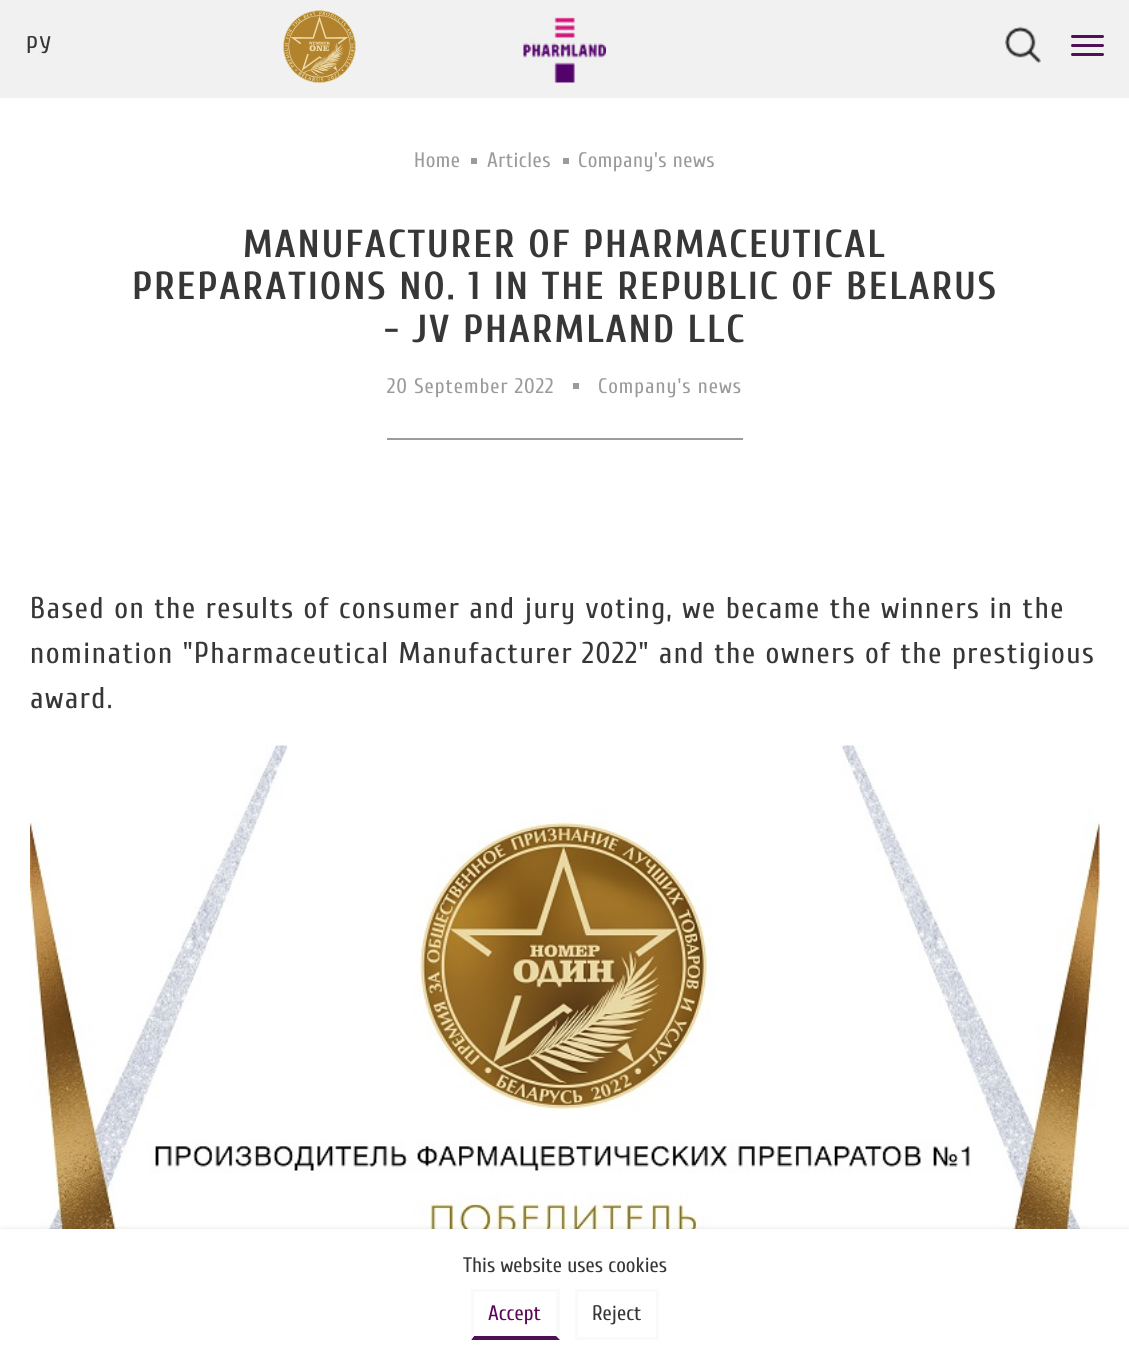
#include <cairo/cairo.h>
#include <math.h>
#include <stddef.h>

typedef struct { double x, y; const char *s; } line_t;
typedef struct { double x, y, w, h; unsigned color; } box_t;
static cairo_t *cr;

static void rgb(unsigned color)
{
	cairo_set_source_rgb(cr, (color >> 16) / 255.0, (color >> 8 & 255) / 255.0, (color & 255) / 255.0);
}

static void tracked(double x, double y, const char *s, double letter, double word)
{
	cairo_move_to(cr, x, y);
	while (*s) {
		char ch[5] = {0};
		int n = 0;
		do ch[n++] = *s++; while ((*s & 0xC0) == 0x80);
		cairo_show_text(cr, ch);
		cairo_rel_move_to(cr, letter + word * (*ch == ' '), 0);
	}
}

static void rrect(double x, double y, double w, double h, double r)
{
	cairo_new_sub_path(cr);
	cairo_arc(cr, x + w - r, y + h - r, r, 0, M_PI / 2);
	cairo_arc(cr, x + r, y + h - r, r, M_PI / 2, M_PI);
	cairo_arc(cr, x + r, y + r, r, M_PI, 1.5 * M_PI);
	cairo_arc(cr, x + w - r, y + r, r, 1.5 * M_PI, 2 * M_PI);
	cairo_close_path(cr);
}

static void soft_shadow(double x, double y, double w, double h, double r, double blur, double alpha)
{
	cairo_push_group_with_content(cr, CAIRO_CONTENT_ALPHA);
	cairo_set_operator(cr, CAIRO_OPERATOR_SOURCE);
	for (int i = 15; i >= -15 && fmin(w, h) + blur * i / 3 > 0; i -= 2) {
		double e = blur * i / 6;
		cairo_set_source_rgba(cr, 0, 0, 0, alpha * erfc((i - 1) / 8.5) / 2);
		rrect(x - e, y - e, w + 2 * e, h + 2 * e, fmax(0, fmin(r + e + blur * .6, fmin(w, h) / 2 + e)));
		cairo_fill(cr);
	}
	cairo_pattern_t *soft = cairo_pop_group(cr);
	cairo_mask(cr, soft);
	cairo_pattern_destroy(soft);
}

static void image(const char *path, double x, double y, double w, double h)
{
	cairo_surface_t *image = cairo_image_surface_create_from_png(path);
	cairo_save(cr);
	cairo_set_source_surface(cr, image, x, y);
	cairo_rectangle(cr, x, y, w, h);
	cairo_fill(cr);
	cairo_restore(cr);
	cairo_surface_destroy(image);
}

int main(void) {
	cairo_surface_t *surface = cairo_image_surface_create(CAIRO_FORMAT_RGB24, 1129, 1362);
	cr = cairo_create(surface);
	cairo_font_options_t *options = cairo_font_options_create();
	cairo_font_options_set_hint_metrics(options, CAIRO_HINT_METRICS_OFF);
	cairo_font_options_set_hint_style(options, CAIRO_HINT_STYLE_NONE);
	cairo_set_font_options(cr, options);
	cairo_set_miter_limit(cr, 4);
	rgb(0xffffff);
	cairo_paint(cr);
	rgb(0xf1f1f1);
	cairo_rectangle(cr, 0, 0, 1129, 98);
	cairo_fill(cr);
	image("img/1.png", 283, 10, 73, 73);
	image("img/2.png", 523, 17, 83, 66);
	image("img/3.png", 1005, 26, 36, 37);
	rgb(0x4e1156);
	rrect(1071, 35, 33, 3, 1.5);
	cairo_fill(cr);
	rrect(1071, 44, 33, 3, 1.5);
	cairo_fill(cr);
	rrect(1071, 53, 33, 3, 1.5);
	cairo_fill(cr);
	{
		static const box_t items[] = {
			{471, 158, 6, 6, 0x9b9b9b},
			{563, 158, 6, 6, 0x9b9b9b},
			{387, 438, 356, 2, 0x9b9b9b},
			{573, 383, 6, 6, 0x9b9b9b},
		};
		for (size_t i = 0; i < sizeof items / sizeof *items; i++) {
			rgb(items[i].color);
			cairo_rectangle(cr, items[i].x, items[i].y, items[i].w, items[i].h);
			cairo_fill(cr);
		}
	}
	image("img/4.png", 30, 745, 1070, 484);
	rgb(0x000000);
	soft_shadow(2, 1236, 1126, 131, 0, 4.5, 1);
	rgb(0xffffff);
	cairo_rectangle(cr, 0, 1229, 1129, 133);
	cairo_fill(cr);
	rgb(0xfafafa);
	cairo_rectangle(cr, 471, 1289, 89, 3);
	cairo_fill(cr);
	cairo_new_path(cr);
	cairo_move_to(cr, 560, 1288);
	cairo_line_to(cr, 560, 1340);
	cairo_line_to(cr, 556, 1336);
	cairo_line_to(cr, 556, 1292);
	cairo_close_path(cr);
	cairo_fill(cr);
	rgb(0x4e1156);
	cairo_new_path(cr);
	cairo_move_to(cr, 560, 1340);
	cairo_line_to(cr, 471, 1340);
	cairo_line_to(cr, 474, 1336);
	cairo_line_to(cr, 556, 1336);
	cairo_close_path(cr);
	cairo_fill(cr);
	rgb(0xfafafa);
	cairo_new_path(cr);
	cairo_move_to(cr, 471, 1340);
	cairo_line_to(cr, 471, 1288);
	cairo_line_to(cr, 474, 1292);
	cairo_line_to(cr, 474, 1336);
	cairo_close_path(cr);
	cairo_fill(cr);
	cairo_rectangle(cr, 576.5, 1290.5, 81, 48);
	cairo_set_line_width(cr, 3);
	cairo_stroke(cr);
	cairo_select_font_face(cr, "Cuprum", CAIRO_FONT_SLANT_NORMAL, CAIRO_FONT_WEIGHT_NORMAL);
	cairo_set_font_size(cr, 24);
	rgb(0x383737);
	tracked(26, 53, "РУ", 2, 0);
	cairo_set_font_size(cr, 21);
	rgb(0x9b9b9b);
	{
		static const line_t items[] = {
			{414, 167, "Home"},
			{487, 167, "Articles"},
			{578, 167, "Company's news"},
		};
		for (size_t i = 0; i < sizeof items / sizeof *items; i++) {
			tracked(items[i].x, items[i].y, items[i].s, 0.5, 0);
		}
	}
	cairo_select_font_face(cr, "Cuprum", CAIRO_FONT_SLANT_NORMAL, CAIRO_FONT_WEIGHT_BOLD);
	cairo_set_font_size(cr, 39);
	rgb(0x383737);
	{
		static const line_t items[] = {
			{243, 257, "MANUFACTURER OF PHARMACEUTICAL"},
			{132, 299, "PREPARATIONS NO. 1 IN THE REPUBLIC OF BELARUS"},
			{384, 342, "- JV PHARMLAND LLC"},
		};
		for (size_t i = 0; i < sizeof items / sizeof *items; i++) {
			tracked(items[i].x, items[i].y, items[i].s, 1.95, 0);
		}
	}
	cairo_select_font_face(cr, "Cuprum", CAIRO_FONT_SLANT_NORMAL, CAIRO_FONT_WEIGHT_NORMAL);
	cairo_set_font_size(cr, 21);
	rgb(0x9b9b9b);
	tracked(387, 393, "20 September 2022", 1, 0);
	tracked(598, 393, "Company's news", 1, 0);
	cairo_set_font_size(cr, 30);
	rgb(0x383737);
	{
		static const line_t items[] = {
			{30, 618, "Based on the results of consumer and jury voting, we became the winners in the"},
			{30, 663, "nomination \"Pharmaceutical Manufacturer 2022\" and the owners of the prestigious"},
			{30, 708, "award."},
		};
		for (size_t i = 0; i < sizeof items / sizeof *items; i++) {
			tracked(items[i].x, items[i].y, items[i].s, 1.5, 0);
		}
	}
	cairo_set_font_size(cr, 21);
	cairo_move_to(cr, 463, 1272);
	cairo_show_text(cr, "This website uses cookies");
	rgb(0x5a0956);
	cairo_move_to(cr, 488, 1320);
	cairo_show_text(cr, "Accept");
	rgb(0x383737);
	cairo_move_to(cr, 592, 1320);
	cairo_show_text(cr, "Reject");
	cairo_surface_write_to_png(surface, "page.png");
	cairo_font_options_destroy(options);
	cairo_destroy(cr);
	cairo_surface_destroy(surface);
	return 0;
}
